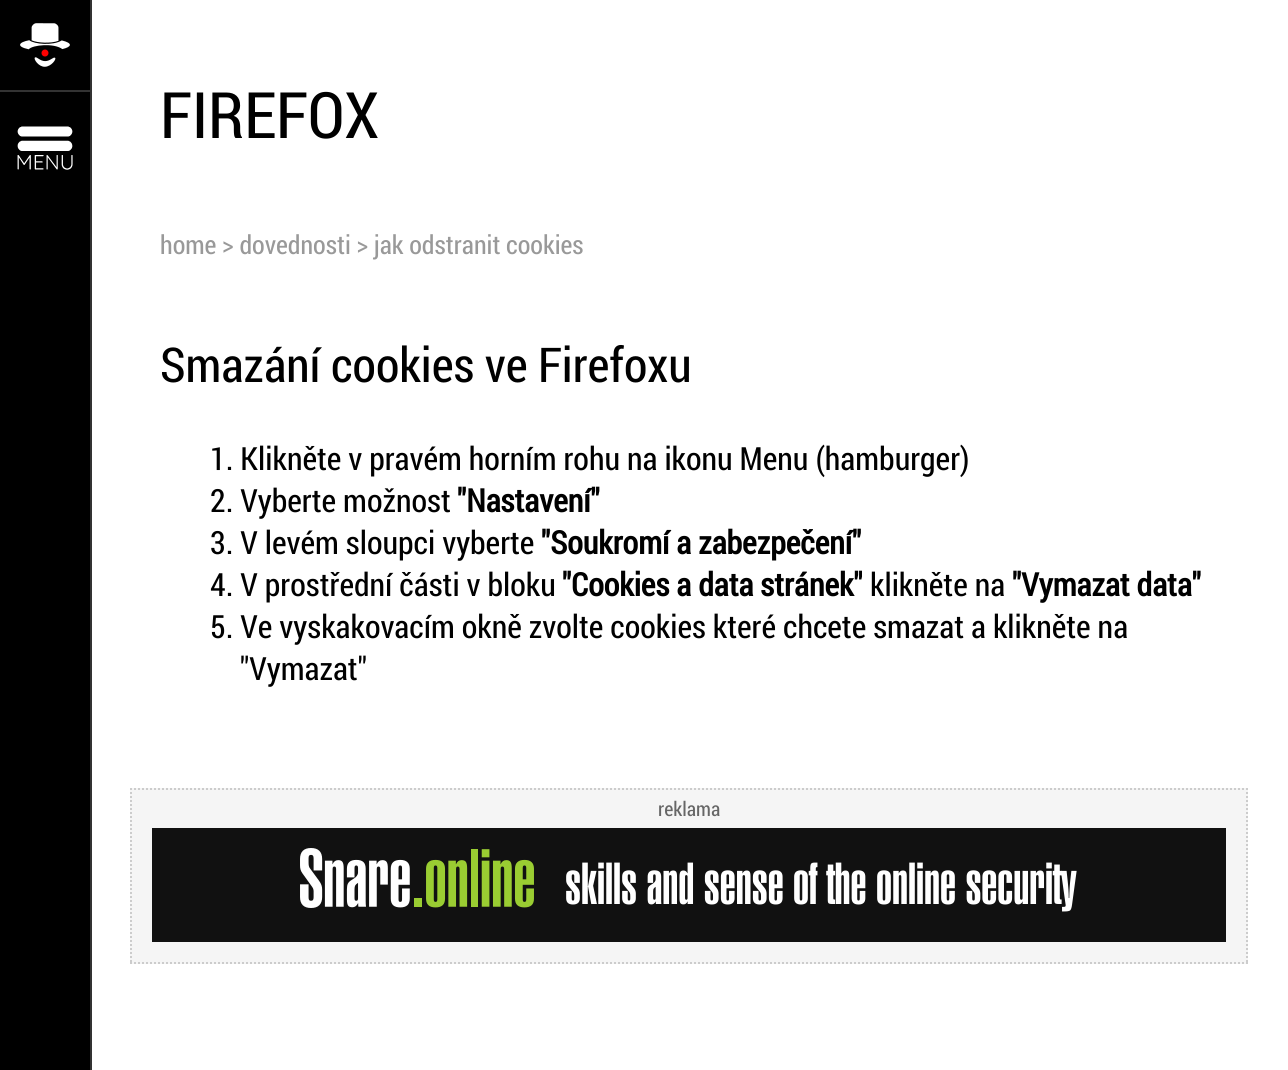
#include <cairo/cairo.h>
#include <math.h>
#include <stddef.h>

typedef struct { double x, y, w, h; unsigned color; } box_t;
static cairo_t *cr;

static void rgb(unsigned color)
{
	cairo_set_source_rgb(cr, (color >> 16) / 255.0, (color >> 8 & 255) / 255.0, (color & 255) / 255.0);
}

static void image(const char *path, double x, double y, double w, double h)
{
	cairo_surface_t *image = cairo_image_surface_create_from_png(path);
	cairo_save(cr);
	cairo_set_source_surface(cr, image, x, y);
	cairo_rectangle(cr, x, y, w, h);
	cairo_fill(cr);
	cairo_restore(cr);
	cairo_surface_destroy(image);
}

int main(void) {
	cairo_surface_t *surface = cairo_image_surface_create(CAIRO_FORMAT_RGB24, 1288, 1070);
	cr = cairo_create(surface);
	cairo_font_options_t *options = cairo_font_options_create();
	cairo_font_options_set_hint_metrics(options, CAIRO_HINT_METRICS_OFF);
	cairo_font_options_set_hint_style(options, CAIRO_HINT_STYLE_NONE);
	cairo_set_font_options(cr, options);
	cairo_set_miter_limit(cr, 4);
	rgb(0xffffff);
	cairo_paint(cr);
	{
		static const box_t items[] = {
			{0, 0, 90, 1070, 0x000000},
			{90, 0, 2, 1070, 0x333333},
			{0, 90, 90, 2, 0x333333},
		};
		for (size_t i = 0; i < sizeof items / sizeof *items; i++) {
			rgb(items[i].color);
			cairo_rectangle(cr, items[i].x, items[i].y, items[i].w, items[i].h);
			cairo_fill(cr);
		}
	}
	image("img/1.png", 20, 23, 50, 44);
	image("img/2.png", 17, 126, 56, 44);
	rgb(0xf5f5f5);
	cairo_rectangle(cr, 130, 788, 1118, 176);
	cairo_fill(cr);
	cairo_new_path(cr);
	cairo_move_to(cr, 130, 789);
	cairo_line_to(cr, 1248, 789);
	rgb(0xcccccc);
	cairo_set_dash(cr, (double[]){2, 2}, 2, 0);
	cairo_stroke(cr);
	cairo_new_path(cr);
	cairo_move_to(cr, 1247, 788);
	cairo_line_to(cr, 1247, 964);
	cairo_stroke(cr);
	cairo_new_path(cr);
	cairo_move_to(cr, 130, 963);
	cairo_line_to(cr, 1248, 963);
	cairo_stroke(cr);
	cairo_new_path(cr);
	cairo_move_to(cr, 131, 788);
	cairo_line_to(cr, 131, 964);
	cairo_stroke(cr);
	rgb(0x111111);
	cairo_rectangle(cr, 152, 828, 1074, 114);
	cairo_fill(cr);
	image("img/3.png", 300, 848, 234, 60);
	cairo_select_font_face(cr, "Roboto Condensed", CAIRO_FONT_SLANT_NORMAL, CAIRO_FONT_WEIGHT_NORMAL);
	cairo_set_font_size(cr, 64);
	rgb(0x000000);
	cairo_move_to(cr, 160, 138);
	cairo_show_text(cr, "FIREFOX");
	cairo_set_font_size(cr, 26);
	rgb(0x999999);
	cairo_move_to(cr, 160, 254);
	cairo_show_text(cr, "home > dovednosti > jak odstranit cookies");
	cairo_set_font_size(cr, 48);
	rgb(0x000000);
	cairo_move_to(cr, 160, 382);
	cairo_show_text(cr, "Smazání cookies ve Firefoxu");
	cairo_set_font_size(cr, 32);
	cairo_move_to(cr, 210, 470);
	cairo_show_text(cr, "1. Klikněte v pravém horním rohu na ikonu Menu (hamburger)");
	cairo_move_to(cr, 210, 512);
	cairo_show_text(cr, "2. Vyberte možnost");
	cairo_select_font_face(cr, "Roboto Condensed", CAIRO_FONT_SLANT_NORMAL, CAIRO_FONT_WEIGHT_BOLD);
	cairo_move_to(cr, 457, 512);
	cairo_show_text(cr, "\"Nastavení\"");
	cairo_select_font_face(cr, "Roboto Condensed", CAIRO_FONT_SLANT_NORMAL, CAIRO_FONT_WEIGHT_NORMAL);
	cairo_move_to(cr, 210, 554);
	cairo_show_text(cr, "3. V levém sloupci vyberte");
	cairo_select_font_face(cr, "Roboto Condensed", CAIRO_FONT_SLANT_NORMAL, CAIRO_FONT_WEIGHT_BOLD);
	cairo_move_to(cr, 541, 554);
	cairo_show_text(cr, "\"Soukromí a zabezpečení\"");
	cairo_select_font_face(cr, "Roboto Condensed", CAIRO_FONT_SLANT_NORMAL, CAIRO_FONT_WEIGHT_NORMAL);
	cairo_move_to(cr, 210, 596);
	cairo_show_text(cr, "4. V prostřední části v bloku");
	cairo_select_font_face(cr, "Roboto Condensed", CAIRO_FONT_SLANT_NORMAL, CAIRO_FONT_WEIGHT_BOLD);
	cairo_move_to(cr, 562, 596);
	cairo_show_text(cr, "\"Cookies a data stránek\"");
	cairo_select_font_face(cr, "Roboto Condensed", CAIRO_FONT_SLANT_NORMAL, CAIRO_FONT_WEIGHT_NORMAL);
	cairo_move_to(cr, 870, 596);
	cairo_show_text(cr, "klikněte na");
	cairo_select_font_face(cr, "Roboto Condensed", CAIRO_FONT_SLANT_NORMAL, CAIRO_FONT_WEIGHT_BOLD);
	cairo_move_to(cr, 1012, 596);
	cairo_show_text(cr, "\"Vymazat data\"");
	cairo_select_font_face(cr, "Roboto Condensed", CAIRO_FONT_SLANT_NORMAL, CAIRO_FONT_WEIGHT_NORMAL);
	cairo_move_to(cr, 210, 638);
	cairo_show_text(cr, "5. Ve vyskakovacím okně zvolte cookies které chcete smazat a klikněte na");
	cairo_move_to(cr, 240, 680);
	cairo_show_text(cr, "\"Vymazat\"");
	cairo_set_font_size(cr, 20);
	rgb(0x666666);
	cairo_move_to(cr, 658, 816);
	cairo_show_text(cr, "reklama");
	cairo_select_font_face(cr, "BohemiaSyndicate", CAIRO_FONT_SLANT_NORMAL, CAIRO_FONT_WEIGHT_NORMAL);
	cairo_set_font_size(cr, 57.5);
	rgb(0xffffff);
	cairo_move_to(cr, 565, 904);
	cairo_show_text(cr, "skills and sense of the online security");
	cairo_surface_write_to_png(surface, "page.png");
	cairo_font_options_destroy(options);
	cairo_destroy(cr);
	cairo_surface_destroy(surface);
	return 0;
}
